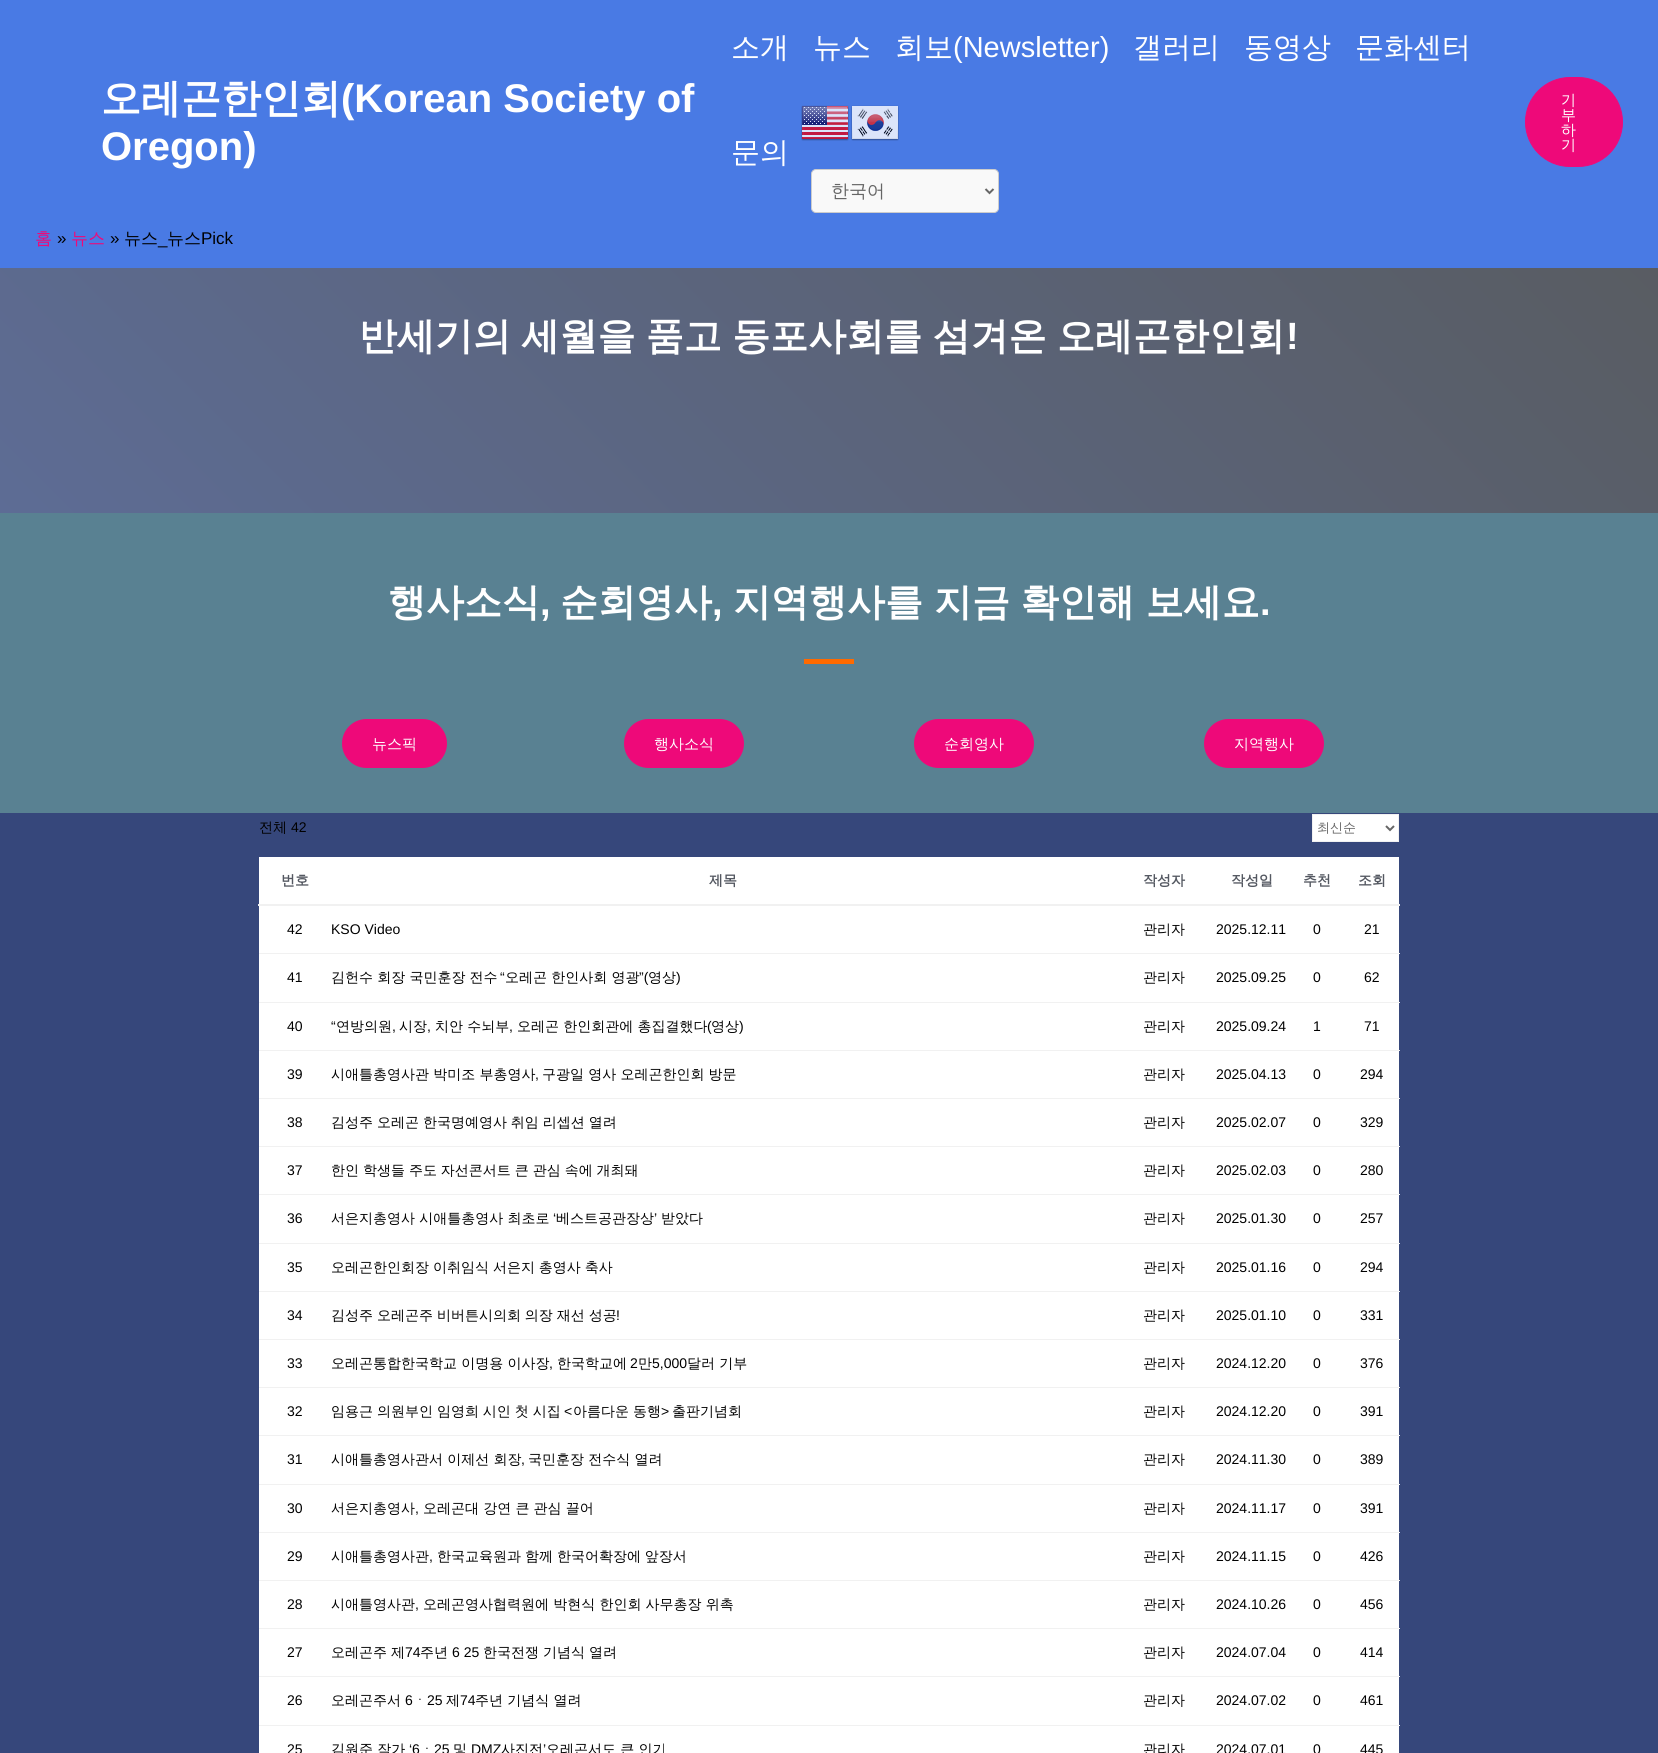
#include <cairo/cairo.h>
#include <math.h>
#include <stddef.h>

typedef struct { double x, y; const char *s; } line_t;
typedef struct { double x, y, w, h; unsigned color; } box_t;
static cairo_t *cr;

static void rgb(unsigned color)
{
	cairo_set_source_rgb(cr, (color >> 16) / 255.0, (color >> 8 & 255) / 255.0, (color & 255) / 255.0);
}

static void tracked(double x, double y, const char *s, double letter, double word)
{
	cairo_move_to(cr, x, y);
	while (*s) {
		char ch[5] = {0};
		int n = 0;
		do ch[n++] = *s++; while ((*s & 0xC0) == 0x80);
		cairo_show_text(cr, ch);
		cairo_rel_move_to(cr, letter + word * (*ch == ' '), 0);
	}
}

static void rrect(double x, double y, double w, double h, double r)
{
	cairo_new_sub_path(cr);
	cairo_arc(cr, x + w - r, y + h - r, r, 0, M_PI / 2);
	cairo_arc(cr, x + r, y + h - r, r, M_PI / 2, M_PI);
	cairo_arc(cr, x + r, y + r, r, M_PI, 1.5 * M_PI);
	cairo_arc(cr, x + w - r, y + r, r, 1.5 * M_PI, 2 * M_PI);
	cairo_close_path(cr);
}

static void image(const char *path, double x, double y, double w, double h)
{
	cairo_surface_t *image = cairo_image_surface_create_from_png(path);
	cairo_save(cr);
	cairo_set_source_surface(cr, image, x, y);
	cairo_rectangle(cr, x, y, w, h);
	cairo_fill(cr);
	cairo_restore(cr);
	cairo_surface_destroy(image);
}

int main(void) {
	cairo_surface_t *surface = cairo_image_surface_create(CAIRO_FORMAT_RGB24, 1658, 1753);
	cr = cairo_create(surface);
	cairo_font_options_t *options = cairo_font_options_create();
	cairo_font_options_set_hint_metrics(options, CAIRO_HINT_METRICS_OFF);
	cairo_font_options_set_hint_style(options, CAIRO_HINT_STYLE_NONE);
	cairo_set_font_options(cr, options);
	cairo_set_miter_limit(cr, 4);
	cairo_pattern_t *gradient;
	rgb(0xffffff);
	cairo_paint(cr);
	rgb(0x497ae4);
	cairo_rectangle(cr, 0, 0, 1658, 268);
	cairo_fill(cr);
	image("img/1.png", 801, 105, 48, 36);
	image("img/2.png", 851, 105, 48, 36);
	rgb(0xf9f9f9);
	rrect(811.5, 169.5, 187, 43, 4.5);
	cairo_fill_preserve(cr);
	rgb(0xcccccc);
	cairo_set_line_width(cr, 1);
	cairo_stroke(cr);
	cairo_new_path(cr);
	cairo_move_to(cr, 985.5, 189);
	cairo_line_to(cr, 989.5, 193);
	cairo_line_to(cr, 993.5, 189);
	rgb(0x666666);
	cairo_set_line_width(cr, 2);
	cairo_stroke(cr);
	rgb(0xee0979);
	rrect(1525.5, 77.5, 97, 89, 44.5);
	cairo_fill_preserve(cr);
	cairo_set_line_width(cr, 1);
	cairo_stroke(cr);
	gradient = cairo_pattern_create_linear(286, 799, 1372, -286);
	cairo_pattern_add_color_stop_rgba(gradient, 0, 0.365, 0.424, 0.584, 1);
	cairo_pattern_add_color_stop_rgba(gradient, 1, 0.345, 0.353, 0.357, 1);
	cairo_set_source(cr, gradient);
	cairo_pattern_destroy(gradient);
	cairo_rectangle(cr, 0, 268, 1658, 245);
	cairo_fill(cr);
	rgb(0x598192);
	cairo_rectangle(cr, 0, 513, 1658, 300);
	cairo_fill(cr);
	rgb(0xff6a00);
	cairo_rectangle(cr, 804, 659, 50, 5);
	cairo_fill(cr);
	rgb(0xee0979);
	rrect(342, 719, 105, 49, 24.5);
	cairo_fill(cr);
	rrect(624, 719, 120, 49, 24.5);
	cairo_fill(cr);
	rrect(914, 719, 120, 49, 24.5);
	cairo_fill(cr);
	rrect(1204, 719, 120, 49, 24.5);
	cairo_fill(cr);
	rgb(0x36477b);
	cairo_rectangle(cr, 0, 813, 1658, 940);
	cairo_fill(cr);
	rgb(0xffffff);
	cairo_rectangle(cr, 1312.5, 814.5, 86, 27);
	cairo_fill_preserve(cr);
	rgb(0xf1f1f1);
	cairo_stroke(cr);
	cairo_new_path(cr);
	cairo_move_to(cr, 1386, 826);
	cairo_line_to(cr, 1390, 830);
	cairo_line_to(cr, 1394, 826);
	rgb(0x666666);
	cairo_set_line_width(cr, 2);
	cairo_stroke(cr);
	{
		static const box_t items[] = {
			{259, 857, 1140, 896, 0xffffff},
			{258, 904, 1142, 2, 0xf1f1f1},
			{259, 953, 1141, 1, 0xf1f1f1},
			{259, 1002, 1141, 1, 0xf1f1f1},
			{259, 1050, 1141, 1, 0xf1f1f1},
			{259, 1098, 1141, 1, 0xf1f1f1},
			{259, 1146, 1141, 1, 0xf1f1f1},
			{259, 1194, 1141, 1, 0xf1f1f1},
			{259, 1243, 1141, 1, 0xf1f1f1},
			{259, 1291, 1141, 1, 0xf1f1f1},
			{259, 1339, 1141, 1, 0xf1f1f1},
			{259, 1387, 1141, 1, 0xf1f1f1},
			{259, 1435, 1141, 1, 0xf1f1f1},
			{259, 1484, 1141, 1, 0xf1f1f1},
			{259, 1532, 1141, 1, 0xf1f1f1},
			{259, 1580, 1141, 1, 0xf1f1f1},
			{259, 1628, 1141, 1, 0xf1f1f1},
			{259, 1676, 1141, 1, 0xf1f1f1},
			{259, 1725, 1141, 1, 0xf1f1f1},
		};
		for (size_t i = 0; i < sizeof items / sizeof *items; i++) {
			rgb(items[i].color);
			cairo_rectangle(cr, items[i].x, items[i].y, items[i].w, items[i].h);
			cairo_fill(cr);
		}
	}
	cairo_select_font_face(cr, "WenQuanYi Zen Hei", CAIRO_FONT_SLANT_NORMAL, CAIRO_FONT_WEIGHT_BOLD);
	cairo_set_font_size(cr, 40);
	rgb(0xffffff);
	cairo_move_to(cr, 101, 112);
	cairo_show_text(cr, "오레곤한인회");
	cairo_select_font_face(cr, "Liberation Sans", CAIRO_FONT_SLANT_NORMAL, CAIRO_FONT_WEIGHT_BOLD);
	cairo_move_to(cr, 341, 112);
	cairo_show_text(cr, "(Korean Society of");
	cairo_move_to(cr, 101, 160);
	cairo_show_text(cr, "Oregon)");
	cairo_select_font_face(cr, "WenQuanYi Zen Hei Medium", CAIRO_FONT_SLANT_NORMAL, CAIRO_FONT_WEIGHT_NORMAL);
	cairo_set_font_size(cr, 29);
	{
		static const line_t items[] = {
			{731, 57, "소개"},
			{813, 57, "뉴스"},
			{895, 57, "회보"},
		};
		for (size_t i = 0; i < sizeof items / sizeof *items; i++) {
			cairo_move_to(cr, items[i].x, items[i].y);
			cairo_show_text(cr, items[i].s);
		}
	}
	cairo_select_font_face(cr, "Liberation Sans", CAIRO_FONT_SLANT_NORMAL, CAIRO_FONT_WEIGHT_NORMAL);
	cairo_move_to(cr, 953, 57);
	cairo_show_text(cr, "(Newsletter)");
	cairo_select_font_face(cr, "WenQuanYi Zen Hei Medium", CAIRO_FONT_SLANT_NORMAL, CAIRO_FONT_WEIGHT_NORMAL);
	{
		static const line_t items[] = {
			{1133, 57, "갤러리"},
			{1244, 57, "동영상"},
			{1355, 57, "문화센터"},
			{731, 162, "문의"},
		};
		for (size_t i = 0; i < sizeof items / sizeof *items; i++) {
			cairo_move_to(cr, items[i].x, items[i].y);
			cairo_show_text(cr, items[i].s);
		}
	}
	cairo_set_font_size(cr, 18);
	rgb(0x666666);
	cairo_move_to(cr, 831, 197);
	cairo_show_text(cr, "한국어");
	cairo_set_font_size(cr, 15);
	rgb(0xffffff);
	{
		static const line_t items[] = {
			{1561, 105, "기"},
			{1561, 120, "부"},
			{1561, 135, "하"},
			{1561, 150, "기"},
		};
		for (size_t i = 0; i < sizeof items / sizeof *items; i++) {
			cairo_move_to(cr, items[i].x, items[i].y);
			cairo_show_text(cr, items[i].s);
		}
	}
	cairo_set_font_size(cr, 17);
	rgb(0xee0979);
	cairo_move_to(cr, 35, 244);
	cairo_show_text(cr, "홈");
	cairo_select_font_face(cr, "Liberation Sans", CAIRO_FONT_SLANT_NORMAL, CAIRO_FONT_WEIGHT_NORMAL);
	rgb(0x000000);
	cairo_move_to(cr, 57, 244);
	cairo_show_text(cr, "»");
	cairo_select_font_face(cr, "WenQuanYi Zen Hei Medium", CAIRO_FONT_SLANT_NORMAL, CAIRO_FONT_WEIGHT_NORMAL);
	rgb(0xee0979);
	cairo_move_to(cr, 71, 244);
	cairo_show_text(cr, "뉴스");
	cairo_select_font_face(cr, "Liberation Sans", CAIRO_FONT_SLANT_NORMAL, CAIRO_FONT_WEIGHT_NORMAL);
	rgb(0x000000);
	cairo_move_to(cr, 110, 244);
	cairo_show_text(cr, "»");
	cairo_select_font_face(cr, "WenQuanYi Zen Hei Medium", CAIRO_FONT_SLANT_NORMAL, CAIRO_FONT_WEIGHT_NORMAL);
	cairo_move_to(cr, 124, 244);
	cairo_show_text(cr, "뉴스");
	cairo_move_to(cr, 167, 244);
	cairo_show_text(cr, "뉴스");
	cairo_select_font_face(cr, "Liberation Sans", CAIRO_FONT_SLANT_NORMAL, CAIRO_FONT_WEIGHT_NORMAL);
	cairo_move_to(cr, 201, 244);
	cairo_show_text(cr, "Pick");
	cairo_move_to(cr, 158, 244);
	cairo_show_text(cr, "_");
	cairo_select_font_face(cr, "WenQuanYi Zen Hei", CAIRO_FONT_SLANT_NORMAL, CAIRO_FONT_WEIGHT_BOLD);
	cairo_set_font_size(cr, 38);
	rgb(0xffffff);
	tracked(359, 349, "반세기의 세월을 품고 동포사회를 섬겨온 오레곤한인회", 0, -1);
	cairo_select_font_face(cr, "Liberation Sans", CAIRO_FONT_SLANT_NORMAL, CAIRO_FONT_WEIGHT_BOLD);
	cairo_move_to(cr, 1286, 349);
	cairo_show_text(cr, "!");
	cairo_select_font_face(cr, "WenQuanYi Zen Hei", CAIRO_FONT_SLANT_NORMAL, CAIRO_FONT_WEIGHT_BOLD);
	cairo_move_to(cr, 388, 615);
	cairo_show_text(cr, "행사소식");
	cairo_select_font_face(cr, "Liberation Sans", CAIRO_FONT_SLANT_NORMAL, CAIRO_FONT_WEIGHT_BOLD);
	cairo_move_to(cr, 540, 615);
	cairo_show_text(cr, ",");
	cairo_select_font_face(cr, "WenQuanYi Zen Hei", CAIRO_FONT_SLANT_NORMAL, CAIRO_FONT_WEIGHT_BOLD);
	cairo_move_to(cr, 560, 615);
	cairo_show_text(cr, "순회영사");
	cairo_select_font_face(cr, "Liberation Sans", CAIRO_FONT_SLANT_NORMAL, CAIRO_FONT_WEIGHT_BOLD);
	cairo_move_to(cr, 712, 615);
	cairo_show_text(cr, ",");
	cairo_select_font_face(cr, "WenQuanYi Zen Hei", CAIRO_FONT_SLANT_NORMAL, CAIRO_FONT_WEIGHT_BOLD);
	tracked(733, 615, "지역행사를 지금 확인해 보세요", 0, -0.5);
	cairo_select_font_face(cr, "Liberation Sans", CAIRO_FONT_SLANT_NORMAL, CAIRO_FONT_WEIGHT_BOLD);
	cairo_move_to(cr, 1260, 615);
	cairo_show_text(cr, ".");
	cairo_select_font_face(cr, "WenQuanYi Zen Hei Medium", CAIRO_FONT_SLANT_NORMAL, CAIRO_FONT_WEIGHT_NORMAL);
	cairo_set_font_size(cr, 15);
	{
		static const line_t items[] = {
			{372, 749, "뉴스픽"},
			{654, 749, "행사소식"},
			{944, 749, "순회영사"},
			{1234, 749, "지역행사"},
		};
		for (size_t i = 0; i < sizeof items / sizeof *items; i++) {
			cairo_move_to(cr, items[i].x, items[i].y);
			cairo_show_text(cr, items[i].s);
		}
	}
	cairo_set_font_size(cr, 14);
	rgb(0x000000);
	cairo_move_to(cr, 259, 832);
	cairo_show_text(cr, "전체");
	cairo_select_font_face(cr, "Liberation Sans", CAIRO_FONT_SLANT_NORMAL, CAIRO_FONT_WEIGHT_NORMAL);
	cairo_move_to(cr, 291, 832);
	cairo_show_text(cr, "42");
	cairo_select_font_face(cr, "WenQuanYi Zen Hei Medium", CAIRO_FONT_SLANT_NORMAL, CAIRO_FONT_WEIGHT_NORMAL);
	cairo_set_font_size(cr, 13);
	rgb(0x666666);
	cairo_move_to(cr, 1317, 832);
	cairo_show_text(cr, "최신순");
	cairo_select_font_face(cr, "WenQuanYi Zen Hei", CAIRO_FONT_SLANT_NORMAL, CAIRO_FONT_WEIGHT_BOLD);
	cairo_set_font_size(cr, 14);
	rgb(0x545861);
	{
		static const line_t items[] = {
			{281, 885, "번호"},
			{709, 885, "제목"},
			{1143, 885, "작성자"},
			{1231, 885, "작성일"},
			{1303, 885, "추천"},
			{1358, 885, "조회"},
		};
		for (size_t i = 0; i < sizeof items / sizeof *items; i++) {
			cairo_move_to(cr, items[i].x, items[i].y);
			cairo_show_text(cr, items[i].s);
		}
	}
	cairo_select_font_face(cr, "Liberation Sans", CAIRO_FONT_SLANT_NORMAL, CAIRO_FONT_WEIGHT_NORMAL);
	rgb(0x000000);
	cairo_move_to(cr, 287, 934);
	cairo_show_text(cr, "42");
	cairo_move_to(cr, 331, 934);
	cairo_show_text(cr, "KSO Video");
	cairo_select_font_face(cr, "WenQuanYi Zen Hei Medium", CAIRO_FONT_SLANT_NORMAL, CAIRO_FONT_WEIGHT_NORMAL);
	cairo_move_to(cr, 1143, 934);
	cairo_show_text(cr, "관리자");
	cairo_select_font_face(cr, "Liberation Sans", CAIRO_FONT_SLANT_NORMAL, CAIRO_FONT_WEIGHT_NORMAL);
	{
		static const line_t items[] = {
			{1216, 934, "2025.12.11"},
			{1313, 934, "0"},
			{1364, 934, "21"},
			{287, 982, "41"},
		};
		for (size_t i = 0; i < sizeof items / sizeof *items; i++) {
			cairo_move_to(cr, items[i].x, items[i].y);
			cairo_show_text(cr, items[i].s);
		}
	}
	cairo_select_font_face(cr, "WenQuanYi Zen Hei Medium", CAIRO_FONT_SLANT_NORMAL, CAIRO_FONT_WEIGHT_NORMAL);
	cairo_move_to(cr, 331, 982);
	cairo_show_text(cr, "김헌수 회장 국민훈장 전수");
	cairo_select_font_face(cr, "Liberation Sans", CAIRO_FONT_SLANT_NORMAL, CAIRO_FONT_WEIGHT_NORMAL);
	cairo_move_to(cr, 500, 982);
	cairo_show_text(cr, "“");
	cairo_select_font_face(cr, "WenQuanYi Zen Hei Medium", CAIRO_FONT_SLANT_NORMAL, CAIRO_FONT_WEIGHT_NORMAL);
	cairo_move_to(cr, 505, 982);
	cairo_show_text(cr, "오레곤 한인사회 영광");
	cairo_select_font_face(cr, "Liberation Sans", CAIRO_FONT_SLANT_NORMAL, CAIRO_FONT_WEIGHT_NORMAL);
	cairo_move_to(cr, 639, 982);
	cairo_show_text(cr, "”(");
	cairo_select_font_face(cr, "WenQuanYi Zen Hei Medium", CAIRO_FONT_SLANT_NORMAL, CAIRO_FONT_WEIGHT_NORMAL);
	cairo_move_to(cr, 648, 982);
	cairo_show_text(cr, "영상");
	cairo_select_font_face(cr, "Liberation Sans", CAIRO_FONT_SLANT_NORMAL, CAIRO_FONT_WEIGHT_NORMAL);
	cairo_move_to(cr, 676, 982);
	cairo_show_text(cr, ")");
	cairo_select_font_face(cr, "WenQuanYi Zen Hei Medium", CAIRO_FONT_SLANT_NORMAL, CAIRO_FONT_WEIGHT_NORMAL);
	cairo_move_to(cr, 1143, 982);
	cairo_show_text(cr, "관리자");
	cairo_select_font_face(cr, "Liberation Sans", CAIRO_FONT_SLANT_NORMAL, CAIRO_FONT_WEIGHT_NORMAL);
	{
		static const line_t items[] = {
			{1216, 982, "2025.09.25"},
			{1313, 982, "0"},
			{1364, 982, "62"},
			{287, 1031, "40"},
			{331, 1031, "“"},
		};
		for (size_t i = 0; i < sizeof items / sizeof *items; i++) {
			cairo_move_to(cr, items[i].x, items[i].y);
			cairo_show_text(cr, items[i].s);
		}
	}
	cairo_select_font_face(cr, "WenQuanYi Zen Hei Medium", CAIRO_FONT_SLANT_NORMAL, CAIRO_FONT_WEIGHT_NORMAL);
	{
		static const line_t items[] = {
			{336, 1031, "연방의원"},
			{399, 1031, "시장"},
			{435, 1031, "치안 수뇌부"},
			{517, 1031, "오레곤 한인회관에 총집결했다"},
		};
		for (size_t i = 0; i < sizeof items / sizeof *items; i++) {
			cairo_move_to(cr, items[i].x, items[i].y);
			cairo_show_text(cr, items[i].s);
		}
	}
	cairo_select_font_face(cr, "Liberation Sans", CAIRO_FONT_SLANT_NORMAL, CAIRO_FONT_WEIGHT_NORMAL);
	cairo_move_to(cr, 707, 1031);
	cairo_show_text(cr, "(");
	cairo_select_font_face(cr, "WenQuanYi Zen Hei Medium", CAIRO_FONT_SLANT_NORMAL, CAIRO_FONT_WEIGHT_NORMAL);
	cairo_move_to(cr, 711, 1031);
	cairo_show_text(cr, "영상");
	cairo_select_font_face(cr, "Liberation Sans", CAIRO_FONT_SLANT_NORMAL, CAIRO_FONT_WEIGHT_NORMAL);
	{
		static const line_t items[] = {
			{739, 1031, ")"},
			{392, 1031, ","},
			{427, 1031, ","},
			{509, 1031, ","},
		};
		for (size_t i = 0; i < sizeof items / sizeof *items; i++) {
			cairo_move_to(cr, items[i].x, items[i].y);
			cairo_show_text(cr, items[i].s);
		}
	}
	cairo_select_font_face(cr, "WenQuanYi Zen Hei Medium", CAIRO_FONT_SLANT_NORMAL, CAIRO_FONT_WEIGHT_NORMAL);
	cairo_move_to(cr, 1143, 1031);
	cairo_show_text(cr, "관리자");
	cairo_select_font_face(cr, "Liberation Sans", CAIRO_FONT_SLANT_NORMAL, CAIRO_FONT_WEIGHT_NORMAL);
	{
		static const line_t items[] = {
			{1216, 1031, "2025.09.24"},
			{1313, 1031, "1"},
			{1364, 1031, "71"},
			{287, 1079, "39"},
		};
		for (size_t i = 0; i < sizeof items / sizeof *items; i++) {
			cairo_move_to(cr, items[i].x, items[i].y);
			cairo_show_text(cr, items[i].s);
		}
	}
	cairo_select_font_face(cr, "WenQuanYi Zen Hei Medium", CAIRO_FONT_SLANT_NORMAL, CAIRO_FONT_WEIGHT_NORMAL);
	cairo_move_to(cr, 331, 1079);
	cairo_show_text(cr, "시애틀총영사관 박미조 부총영사");
	cairo_select_font_face(cr, "Liberation Sans", CAIRO_FONT_SLANT_NORMAL, CAIRO_FONT_WEIGHT_NORMAL);
	cairo_move_to(cr, 535, 1079);
	cairo_show_text(cr, ",");
	cairo_select_font_face(cr, "WenQuanYi Zen Hei Medium", CAIRO_FONT_SLANT_NORMAL, CAIRO_FONT_WEIGHT_NORMAL);
	cairo_move_to(cr, 542, 1079);
	cairo_show_text(cr, "구광일 영사 오레곤한인회 방문");
	cairo_move_to(cr, 1143, 1079);
	cairo_show_text(cr, "관리자");
	cairo_select_font_face(cr, "Liberation Sans", CAIRO_FONT_SLANT_NORMAL, CAIRO_FONT_WEIGHT_NORMAL);
	{
		static const line_t items[] = {
			{1216, 1079, "2025.04.13"},
			{1313, 1079, "0"},
			{1360, 1079, "294"},
			{287, 1127, "38"},
		};
		for (size_t i = 0; i < sizeof items / sizeof *items; i++) {
			cairo_move_to(cr, items[i].x, items[i].y);
			cairo_show_text(cr, items[i].s);
		}
	}
	cairo_select_font_face(cr, "WenQuanYi Zen Hei Medium", CAIRO_FONT_SLANT_NORMAL, CAIRO_FONT_WEIGHT_NORMAL);
	tracked(331, 1127, "김성주 오레곤 한국명예영사 취임 리셉션 열려", 0, -0.25);
	cairo_move_to(cr, 1143, 1127);
	cairo_show_text(cr, "관리자");
	cairo_select_font_face(cr, "Liberation Sans", CAIRO_FONT_SLANT_NORMAL, CAIRO_FONT_WEIGHT_NORMAL);
	{
		static const line_t items[] = {
			{1216, 1127, "2025.02.07"},
			{1313, 1127, "0"},
			{1360, 1127, "329"},
			{287, 1175, "37"},
		};
		for (size_t i = 0; i < sizeof items / sizeof *items; i++) {
			cairo_move_to(cr, items[i].x, items[i].y);
			cairo_show_text(cr, items[i].s);
		}
	}
	cairo_select_font_face(cr, "WenQuanYi Zen Hei Medium", CAIRO_FONT_SLANT_NORMAL, CAIRO_FONT_WEIGHT_NORMAL);
	tracked(331, 1175, "한인 학생들 주도 자선콘서트 큰 관심 속에 개최돼", 0, -0.25);
	cairo_move_to(cr, 1143, 1175);
	cairo_show_text(cr, "관리자");
	cairo_select_font_face(cr, "Liberation Sans", CAIRO_FONT_SLANT_NORMAL, CAIRO_FONT_WEIGHT_NORMAL);
	{
		static const line_t items[] = {
			{1216, 1175, "2025.02.03"},
			{1313, 1175, "0"},
			{1360, 1175, "280"},
			{287, 1223, "36"},
		};
		for (size_t i = 0; i < sizeof items / sizeof *items; i++) {
			cairo_move_to(cr, items[i].x, items[i].y);
			cairo_show_text(cr, items[i].s);
		}
	}
	cairo_select_font_face(cr, "WenQuanYi Zen Hei Medium", CAIRO_FONT_SLANT_NORMAL, CAIRO_FONT_WEIGHT_NORMAL);
	cairo_move_to(cr, 331, 1223);
	cairo_show_text(cr, "서은지총영사 시애틀총영사 최초로");
	cairo_select_font_face(cr, "Liberation Sans", CAIRO_FONT_SLANT_NORMAL, CAIRO_FONT_WEIGHT_NORMAL);
	cairo_move_to(cr, 553, 1223);
	cairo_show_text(cr, "‘");
	cairo_select_font_face(cr, "WenQuanYi Zen Hei Medium", CAIRO_FONT_SLANT_NORMAL, CAIRO_FONT_WEIGHT_NORMAL);
	cairo_move_to(cr, 556, 1223);
	cairo_show_text(cr, "베스트공관장상");
	cairo_select_font_face(cr, "Liberation Sans", CAIRO_FONT_SLANT_NORMAL, CAIRO_FONT_WEIGHT_NORMAL);
	cairo_move_to(cr, 654, 1223);
	cairo_show_text(cr, "’");
	cairo_select_font_face(cr, "WenQuanYi Zen Hei Medium", CAIRO_FONT_SLANT_NORMAL, CAIRO_FONT_WEIGHT_NORMAL);
	cairo_move_to(cr, 661, 1223);
	cairo_show_text(cr, "받았다");
	cairo_move_to(cr, 1143, 1223);
	cairo_show_text(cr, "관리자");
	cairo_select_font_face(cr, "Liberation Sans", CAIRO_FONT_SLANT_NORMAL, CAIRO_FONT_WEIGHT_NORMAL);
	{
		static const line_t items[] = {
			{1216, 1223, "2025.01.30"},
			{1313, 1223, "0"},
			{1360, 1223, "257"},
			{287, 1272, "35"},
		};
		for (size_t i = 0; i < sizeof items / sizeof *items; i++) {
			cairo_move_to(cr, items[i].x, items[i].y);
			cairo_show_text(cr, items[i].s);
		}
	}
	cairo_select_font_face(cr, "WenQuanYi Zen Hei Medium", CAIRO_FONT_SLANT_NORMAL, CAIRO_FONT_WEIGHT_NORMAL);
	tracked(331, 1272, "오레곤한인회장 이취임식 서은지 총영사 축사", 0, -0.25);
	cairo_move_to(cr, 1143, 1272);
	cairo_show_text(cr, "관리자");
	cairo_select_font_face(cr, "Liberation Sans", CAIRO_FONT_SLANT_NORMAL, CAIRO_FONT_WEIGHT_NORMAL);
	{
		static const line_t items[] = {
			{1216, 1272, "2025.01.16"},
			{1313, 1272, "0"},
			{1360, 1272, "294"},
			{287, 1320, "34"},
		};
		for (size_t i = 0; i < sizeof items / sizeof *items; i++) {
			cairo_move_to(cr, items[i].x, items[i].y);
			cairo_show_text(cr, items[i].s);
		}
	}
	cairo_select_font_face(cr, "WenQuanYi Zen Hei Medium", CAIRO_FONT_SLANT_NORMAL, CAIRO_FONT_WEIGHT_NORMAL);
	tracked(331, 1320, "김성주 오레곤주 비버튼시의회 의장 재선 성공", 0, -0.25);
	cairo_select_font_face(cr, "Liberation Sans", CAIRO_FONT_SLANT_NORMAL, CAIRO_FONT_WEIGHT_NORMAL);
	cairo_move_to(cr, 616, 1320);
	cairo_show_text(cr, "!");
	cairo_select_font_face(cr, "WenQuanYi Zen Hei Medium", CAIRO_FONT_SLANT_NORMAL, CAIRO_FONT_WEIGHT_NORMAL);
	cairo_move_to(cr, 1143, 1320);
	cairo_show_text(cr, "관리자");
	cairo_select_font_face(cr, "Liberation Sans", CAIRO_FONT_SLANT_NORMAL, CAIRO_FONT_WEIGHT_NORMAL);
	{
		static const line_t items[] = {
			{1216, 1320, "2025.01.10"},
			{1313, 1320, "0"},
			{1360, 1320, "331"},
			{287, 1368, "33"},
		};
		for (size_t i = 0; i < sizeof items / sizeof *items; i++) {
			cairo_move_to(cr, items[i].x, items[i].y);
			cairo_show_text(cr, items[i].s);
		}
	}
	cairo_select_font_face(cr, "WenQuanYi Zen Hei Medium", CAIRO_FONT_SLANT_NORMAL, CAIRO_FONT_WEIGHT_NORMAL);
	cairo_move_to(cr, 331, 1368);
	cairo_show_text(cr, "오레곤통합한국학교 이명용 이사장");
	cairo_select_font_face(cr, "Liberation Sans", CAIRO_FONT_SLANT_NORMAL, CAIRO_FONT_WEIGHT_NORMAL);
	cairo_move_to(cr, 549, 1368);
	cairo_show_text(cr, ",");
	cairo_select_font_face(cr, "WenQuanYi Zen Hei Medium", CAIRO_FONT_SLANT_NORMAL, CAIRO_FONT_WEIGHT_NORMAL);
	cairo_move_to(cr, 557, 1368);
	cairo_show_text(cr, "한국학교에");
	cairo_select_font_face(cr, "Liberation Sans", CAIRO_FONT_SLANT_NORMAL, CAIRO_FONT_WEIGHT_NORMAL);
	cairo_move_to(cr, 630, 1368);
	cairo_show_text(cr, "2");
	cairo_select_font_face(cr, "WenQuanYi Zen Hei Medium", CAIRO_FONT_SLANT_NORMAL, CAIRO_FONT_WEIGHT_NORMAL);
	cairo_move_to(cr, 638, 1368);
	cairo_show_text(cr, "만");
	cairo_select_font_face(cr, "Liberation Sans", CAIRO_FONT_SLANT_NORMAL, CAIRO_FONT_WEIGHT_NORMAL);
	cairo_move_to(cr, 652, 1368);
	cairo_show_text(cr, "5,000");
	cairo_select_font_face(cr, "WenQuanYi Zen Hei Medium", CAIRO_FONT_SLANT_NORMAL, CAIRO_FONT_WEIGHT_NORMAL);
	cairo_move_to(cr, 687, 1368);
	cairo_show_text(cr, "달러 기부");
	cairo_move_to(cr, 1143, 1368);
	cairo_show_text(cr, "관리자");
	cairo_select_font_face(cr, "Liberation Sans", CAIRO_FONT_SLANT_NORMAL, CAIRO_FONT_WEIGHT_NORMAL);
	{
		static const line_t items[] = {
			{1216, 1368, "2024.12.20"},
			{1313, 1368, "0"},
			{1360, 1368, "376"},
			{287, 1416, "32"},
		};
		for (size_t i = 0; i < sizeof items / sizeof *items; i++) {
			cairo_move_to(cr, items[i].x, items[i].y);
			cairo_show_text(cr, items[i].s);
		}
	}
	cairo_select_font_face(cr, "WenQuanYi Zen Hei Medium", CAIRO_FONT_SLANT_NORMAL, CAIRO_FONT_WEIGHT_NORMAL);
	tracked(331, 1416, "임용근 의원부인 임영희 시인 첫 시집", 0, -0.25);
	cairo_select_font_face(cr, "Liberation Sans", CAIRO_FONT_SLANT_NORMAL, CAIRO_FONT_WEIGHT_NORMAL);
	cairo_move_to(cr, 564, 1416);
	cairo_show_text(cr, "<");
	cairo_select_font_face(cr, "WenQuanYi Zen Hei Medium", CAIRO_FONT_SLANT_NORMAL, CAIRO_FONT_WEIGHT_NORMAL);
	tracked(573, 1416, "아름다운 동행", 0, -0.25);
	cairo_select_font_face(cr, "Liberation Sans", CAIRO_FONT_SLANT_NORMAL, CAIRO_FONT_WEIGHT_NORMAL);
	cairo_move_to(cr, 661, 1416);
	cairo_show_text(cr, ">");
	cairo_select_font_face(cr, "WenQuanYi Zen Hei Medium", CAIRO_FONT_SLANT_NORMAL, CAIRO_FONT_WEIGHT_NORMAL);
	cairo_move_to(cr, 672, 1416);
	cairo_show_text(cr, "출판기념회");
	cairo_move_to(cr, 1143, 1416);
	cairo_show_text(cr, "관리자");
	cairo_select_font_face(cr, "Liberation Sans", CAIRO_FONT_SLANT_NORMAL, CAIRO_FONT_WEIGHT_NORMAL);
	{
		static const line_t items[] = {
			{1216, 1416, "2024.12.20"},
			{1313, 1416, "0"},
			{1360, 1416, "391"},
			{287, 1464, "31"},
		};
		for (size_t i = 0; i < sizeof items / sizeof *items; i++) {
			cairo_move_to(cr, items[i].x, items[i].y);
			cairo_show_text(cr, items[i].s);
		}
	}
	cairo_select_font_face(cr, "WenQuanYi Zen Hei Medium", CAIRO_FONT_SLANT_NORMAL, CAIRO_FONT_WEIGHT_NORMAL);
	cairo_move_to(cr, 331, 1464);
	cairo_show_text(cr, "시애틀총영사관서 이제선 회장");
	cairo_select_font_face(cr, "Liberation Sans", CAIRO_FONT_SLANT_NORMAL, CAIRO_FONT_WEIGHT_NORMAL);
	cairo_move_to(cr, 521, 1464);
	cairo_show_text(cr, ",");
	cairo_select_font_face(cr, "WenQuanYi Zen Hei Medium", CAIRO_FONT_SLANT_NORMAL, CAIRO_FONT_WEIGHT_NORMAL);
	cairo_move_to(cr, 528, 1464);
	cairo_show_text(cr, "국민훈장 전수식 열려");
	cairo_move_to(cr, 1143, 1464);
	cairo_show_text(cr, "관리자");
	cairo_select_font_face(cr, "Liberation Sans", CAIRO_FONT_SLANT_NORMAL, CAIRO_FONT_WEIGHT_NORMAL);
	{
		static const line_t items[] = {
			{1216, 1464, "2024.11.30"},
			{1313, 1464, "0"},
			{1360, 1464, "389"},
			{287, 1513, "30"},
		};
		for (size_t i = 0; i < sizeof items / sizeof *items; i++) {
			cairo_move_to(cr, items[i].x, items[i].y);
			cairo_show_text(cr, items[i].s);
		}
	}
	cairo_select_font_face(cr, "WenQuanYi Zen Hei Medium", CAIRO_FONT_SLANT_NORMAL, CAIRO_FONT_WEIGHT_NORMAL);
	cairo_move_to(cr, 331, 1513);
	cairo_show_text(cr, "서은지총영사");
	cairo_select_font_face(cr, "Liberation Sans", CAIRO_FONT_SLANT_NORMAL, CAIRO_FONT_WEIGHT_NORMAL);
	cairo_move_to(cr, 415, 1513);
	cairo_show_text(cr, ",");
	cairo_select_font_face(cr, "WenQuanYi Zen Hei Medium", CAIRO_FONT_SLANT_NORMAL, CAIRO_FONT_WEIGHT_NORMAL);
	cairo_move_to(cr, 423, 1513);
	cairo_show_text(cr, "오레곤대 강연 큰 관심 끌어");
	cairo_move_to(cr, 1143, 1513);
	cairo_show_text(cr, "관리자");
	cairo_select_font_face(cr, "Liberation Sans", CAIRO_FONT_SLANT_NORMAL, CAIRO_FONT_WEIGHT_NORMAL);
	{
		static const line_t items[] = {
			{1216, 1513, "2024.11.17"},
			{1313, 1513, "0"},
			{1360, 1513, "391"},
			{287, 1561, "29"},
		};
		for (size_t i = 0; i < sizeof items / sizeof *items; i++) {
			cairo_move_to(cr, items[i].x, items[i].y);
			cairo_show_text(cr, items[i].s);
		}
	}
	cairo_select_font_face(cr, "WenQuanYi Zen Hei Medium", CAIRO_FONT_SLANT_NORMAL, CAIRO_FONT_WEIGHT_NORMAL);
	cairo_move_to(cr, 331, 1561);
	cairo_show_text(cr, "시애틀총영사관");
	cairo_select_font_face(cr, "Liberation Sans", CAIRO_FONT_SLANT_NORMAL, CAIRO_FONT_WEIGHT_NORMAL);
	cairo_move_to(cr, 429, 1561);
	cairo_show_text(cr, ",");
	cairo_select_font_face(cr, "WenQuanYi Zen Hei Medium", CAIRO_FONT_SLANT_NORMAL, CAIRO_FONT_WEIGHT_NORMAL);
	tracked(437, 1561, "한국교육원과 함께 한국어확장에 앞장서", 0, -0.25);
	cairo_move_to(cr, 1143, 1561);
	cairo_show_text(cr, "관리자");
	cairo_select_font_face(cr, "Liberation Sans", CAIRO_FONT_SLANT_NORMAL, CAIRO_FONT_WEIGHT_NORMAL);
	{
		static const line_t items[] = {
			{1216, 1561, "2024.11.15"},
			{1313, 1561, "0"},
			{1360, 1561, "426"},
			{287, 1609, "28"},
		};
		for (size_t i = 0; i < sizeof items / sizeof *items; i++) {
			cairo_move_to(cr, items[i].x, items[i].y);
			cairo_show_text(cr, items[i].s);
		}
	}
	cairo_select_font_face(cr, "WenQuanYi Zen Hei Medium", CAIRO_FONT_SLANT_NORMAL, CAIRO_FONT_WEIGHT_NORMAL);
	cairo_move_to(cr, 331, 1609);
	cairo_show_text(cr, "시애틀영사관");
	cairo_select_font_face(cr, "Liberation Sans", CAIRO_FONT_SLANT_NORMAL, CAIRO_FONT_WEIGHT_NORMAL);
	cairo_move_to(cr, 415, 1609);
	cairo_show_text(cr, ",");
	cairo_select_font_face(cr, "WenQuanYi Zen Hei Medium", CAIRO_FONT_SLANT_NORMAL, CAIRO_FONT_WEIGHT_NORMAL);
	cairo_move_to(cr, 423, 1609);
	cairo_show_text(cr, "오레곤영사협력원에 박현식 한인회 사무총장 위촉");
	cairo_move_to(cr, 1143, 1609);
	cairo_show_text(cr, "관리자");
	cairo_select_font_face(cr, "Liberation Sans", CAIRO_FONT_SLANT_NORMAL, CAIRO_FONT_WEIGHT_NORMAL);
	{
		static const line_t items[] = {
			{1216, 1609, "2024.10.26"},
			{1313, 1609, "0"},
			{1360, 1609, "456"},
			{287, 1657, "27"},
		};
		for (size_t i = 0; i < sizeof items / sizeof *items; i++) {
			cairo_move_to(cr, items[i].x, items[i].y);
			cairo_show_text(cr, items[i].s);
		}
	}
	cairo_select_font_face(cr, "WenQuanYi Zen Hei Medium", CAIRO_FONT_SLANT_NORMAL, CAIRO_FONT_WEIGHT_NORMAL);
	cairo_move_to(cr, 331, 1657);
	cairo_show_text(cr, "오레곤주");
	cairo_move_to(cr, 391, 1657);
	cairo_show_text(cr, "제");
	cairo_select_font_face(cr, "Liberation Sans", CAIRO_FONT_SLANT_NORMAL, CAIRO_FONT_WEIGHT_NORMAL);
	cairo_move_to(cr, 405, 1657);
	cairo_show_text(cr, "74");
	cairo_select_font_face(cr, "WenQuanYi Zen Hei Medium", CAIRO_FONT_SLANT_NORMAL, CAIRO_FONT_WEIGHT_NORMAL);
	cairo_move_to(cr, 420, 1657);
	cairo_show_text(cr, "주년");
	cairo_select_font_face(cr, "Liberation Sans", CAIRO_FONT_SLANT_NORMAL, CAIRO_FONT_WEIGHT_NORMAL);
	cairo_move_to(cr, 452, 1657);
	cairo_show_text(cr, "6 25");
	cairo_select_font_face(cr, "WenQuanYi Zen Hei Medium", CAIRO_FONT_SLANT_NORMAL, CAIRO_FONT_WEIGHT_NORMAL);
	{
		static const line_t items[] = {
			{483, 1657, "한국전쟁"},
			{543, 1657, "기념식"},
			{589, 1657, "열려"},
			{1143, 1657, "관리자"},
		};
		for (size_t i = 0; i < sizeof items / sizeof *items; i++) {
			cairo_move_to(cr, items[i].x, items[i].y);
			cairo_show_text(cr, items[i].s);
		}
	}
	cairo_select_font_face(cr, "Liberation Sans", CAIRO_FONT_SLANT_NORMAL, CAIRO_FONT_WEIGHT_NORMAL);
	{
		static const line_t items[] = {
			{1216, 1657, "2024.07.04"},
			{1313, 1657, "0"},
			{1360, 1657, "414"},
			{287, 1705, "26"},
		};
		for (size_t i = 0; i < sizeof items / sizeof *items; i++) {
			cairo_move_to(cr, items[i].x, items[i].y);
			cairo_show_text(cr, items[i].s);
		}
	}
	cairo_select_font_face(cr, "WenQuanYi Zen Hei Medium", CAIRO_FONT_SLANT_NORMAL, CAIRO_FONT_WEIGHT_NORMAL);
	cairo_move_to(cr, 331, 1705);
	cairo_show_text(cr, "오레곤주서");
	cairo_select_font_face(cr, "Liberation Sans", CAIRO_FONT_SLANT_NORMAL, CAIRO_FONT_WEIGHT_NORMAL);
	cairo_move_to(cr, 405, 1705);
	cairo_show_text(cr, "6");
	cairo_select_font_face(cr, "WenQuanYi Zen Hei Medium", CAIRO_FONT_SLANT_NORMAL, CAIRO_FONT_WEIGHT_NORMAL);
	cairo_move_to(cr, 413, 1705);
	cairo_show_text(cr, "ㆍ");
	cairo_select_font_face(cr, "Liberation Sans", CAIRO_FONT_SLANT_NORMAL, CAIRO_FONT_WEIGHT_NORMAL);
	cairo_move_to(cr, 427, 1705);
	cairo_show_text(cr, "25");
	cairo_select_font_face(cr, "WenQuanYi Zen Hei Medium", CAIRO_FONT_SLANT_NORMAL, CAIRO_FONT_WEIGHT_NORMAL);
	cairo_move_to(cr, 446, 1705);
	cairo_show_text(cr, "제");
	cairo_select_font_face(cr, "Liberation Sans", CAIRO_FONT_SLANT_NORMAL, CAIRO_FONT_WEIGHT_NORMAL);
	cairo_move_to(cr, 460, 1705);
	cairo_show_text(cr, "74");
	cairo_select_font_face(cr, "WenQuanYi Zen Hei Medium", CAIRO_FONT_SLANT_NORMAL, CAIRO_FONT_WEIGHT_NORMAL);
	cairo_move_to(cr, 475, 1705);
	cairo_show_text(cr, "주년 기념식 열려");
	cairo_move_to(cr, 1143, 1705);
	cairo_show_text(cr, "관리자");
	cairo_select_font_face(cr, "Liberation Sans", CAIRO_FONT_SLANT_NORMAL, CAIRO_FONT_WEIGHT_NORMAL);
	{
		static const line_t items[] = {
			{1216, 1705, "2024.07.02"},
			{1313, 1705, "0"},
			{1360, 1705, "461"},
			{287, 1754, "25"},
		};
		for (size_t i = 0; i < sizeof items / sizeof *items; i++) {
			cairo_move_to(cr, items[i].x, items[i].y);
			cairo_show_text(cr, items[i].s);
		}
	}
	cairo_select_font_face(cr, "WenQuanYi Zen Hei Medium", CAIRO_FONT_SLANT_NORMAL, CAIRO_FONT_WEIGHT_NORMAL);
	cairo_move_to(cr, 331, 1754);
	cairo_show_text(cr, "김원준 작가");
	cairo_select_font_face(cr, "Liberation Sans", CAIRO_FONT_SLANT_NORMAL, CAIRO_FONT_WEIGHT_NORMAL);
	cairo_move_to(cr, 409, 1754);
	cairo_show_text(cr, "‘6");
	cairo_select_font_face(cr, "WenQuanYi Zen Hei Medium", CAIRO_FONT_SLANT_NORMAL, CAIRO_FONT_WEIGHT_NORMAL);
	cairo_move_to(cr, 420, 1754);
	cairo_show_text(cr, "ㆍ");
	cairo_select_font_face(cr, "Liberation Sans", CAIRO_FONT_SLANT_NORMAL, CAIRO_FONT_WEIGHT_NORMAL);
	cairo_move_to(cr, 434, 1754);
	cairo_show_text(cr, "25");
	cairo_select_font_face(cr, "WenQuanYi Zen Hei Medium", CAIRO_FONT_SLANT_NORMAL, CAIRO_FONT_WEIGHT_NORMAL);
	cairo_move_to(cr, 453, 1754);
	cairo_show_text(cr, "및");
	cairo_select_font_face(cr, "Liberation Sans", CAIRO_FONT_SLANT_NORMAL, CAIRO_FONT_WEIGHT_NORMAL);
	cairo_move_to(cr, 471, 1754);
	cairo_show_text(cr, "DMZ");
	cairo_select_font_face(cr, "WenQuanYi Zen Hei Medium", CAIRO_FONT_SLANT_NORMAL, CAIRO_FONT_WEIGHT_NORMAL);
	cairo_move_to(cr, 501, 1754);
	cairo_show_text(cr, "사진전");
	cairo_select_font_face(cr, "Liberation Sans", CAIRO_FONT_SLANT_NORMAL, CAIRO_FONT_WEIGHT_NORMAL);
	cairo_move_to(cr, 543, 1754);
	cairo_show_text(cr, "’");
	cairo_select_font_face(cr, "WenQuanYi Zen Hei Medium", CAIRO_FONT_SLANT_NORMAL, CAIRO_FONT_WEIGHT_NORMAL);
	cairo_move_to(cr, 546, 1754);
	cairo_show_text(cr, "오레곤서도 큰 인기");
	cairo_move_to(cr, 1143, 1754);
	cairo_show_text(cr, "관리자");
	cairo_select_font_face(cr, "Liberation Sans", CAIRO_FONT_SLANT_NORMAL, CAIRO_FONT_WEIGHT_NORMAL);
	{
		static const line_t items[] = {
			{1216, 1754, "2024.07.01"},
			{1313, 1754, "0"},
			{1360, 1754, "445"},
		};
		for (size_t i = 0; i < sizeof items / sizeof *items; i++) {
			cairo_move_to(cr, items[i].x, items[i].y);
			cairo_show_text(cr, items[i].s);
		}
	}
	cairo_surface_write_to_png(surface, "page.png");
	cairo_font_options_destroy(options);
	cairo_destroy(cr);
	cairo_surface_destroy(surface);
	return 0;
}
